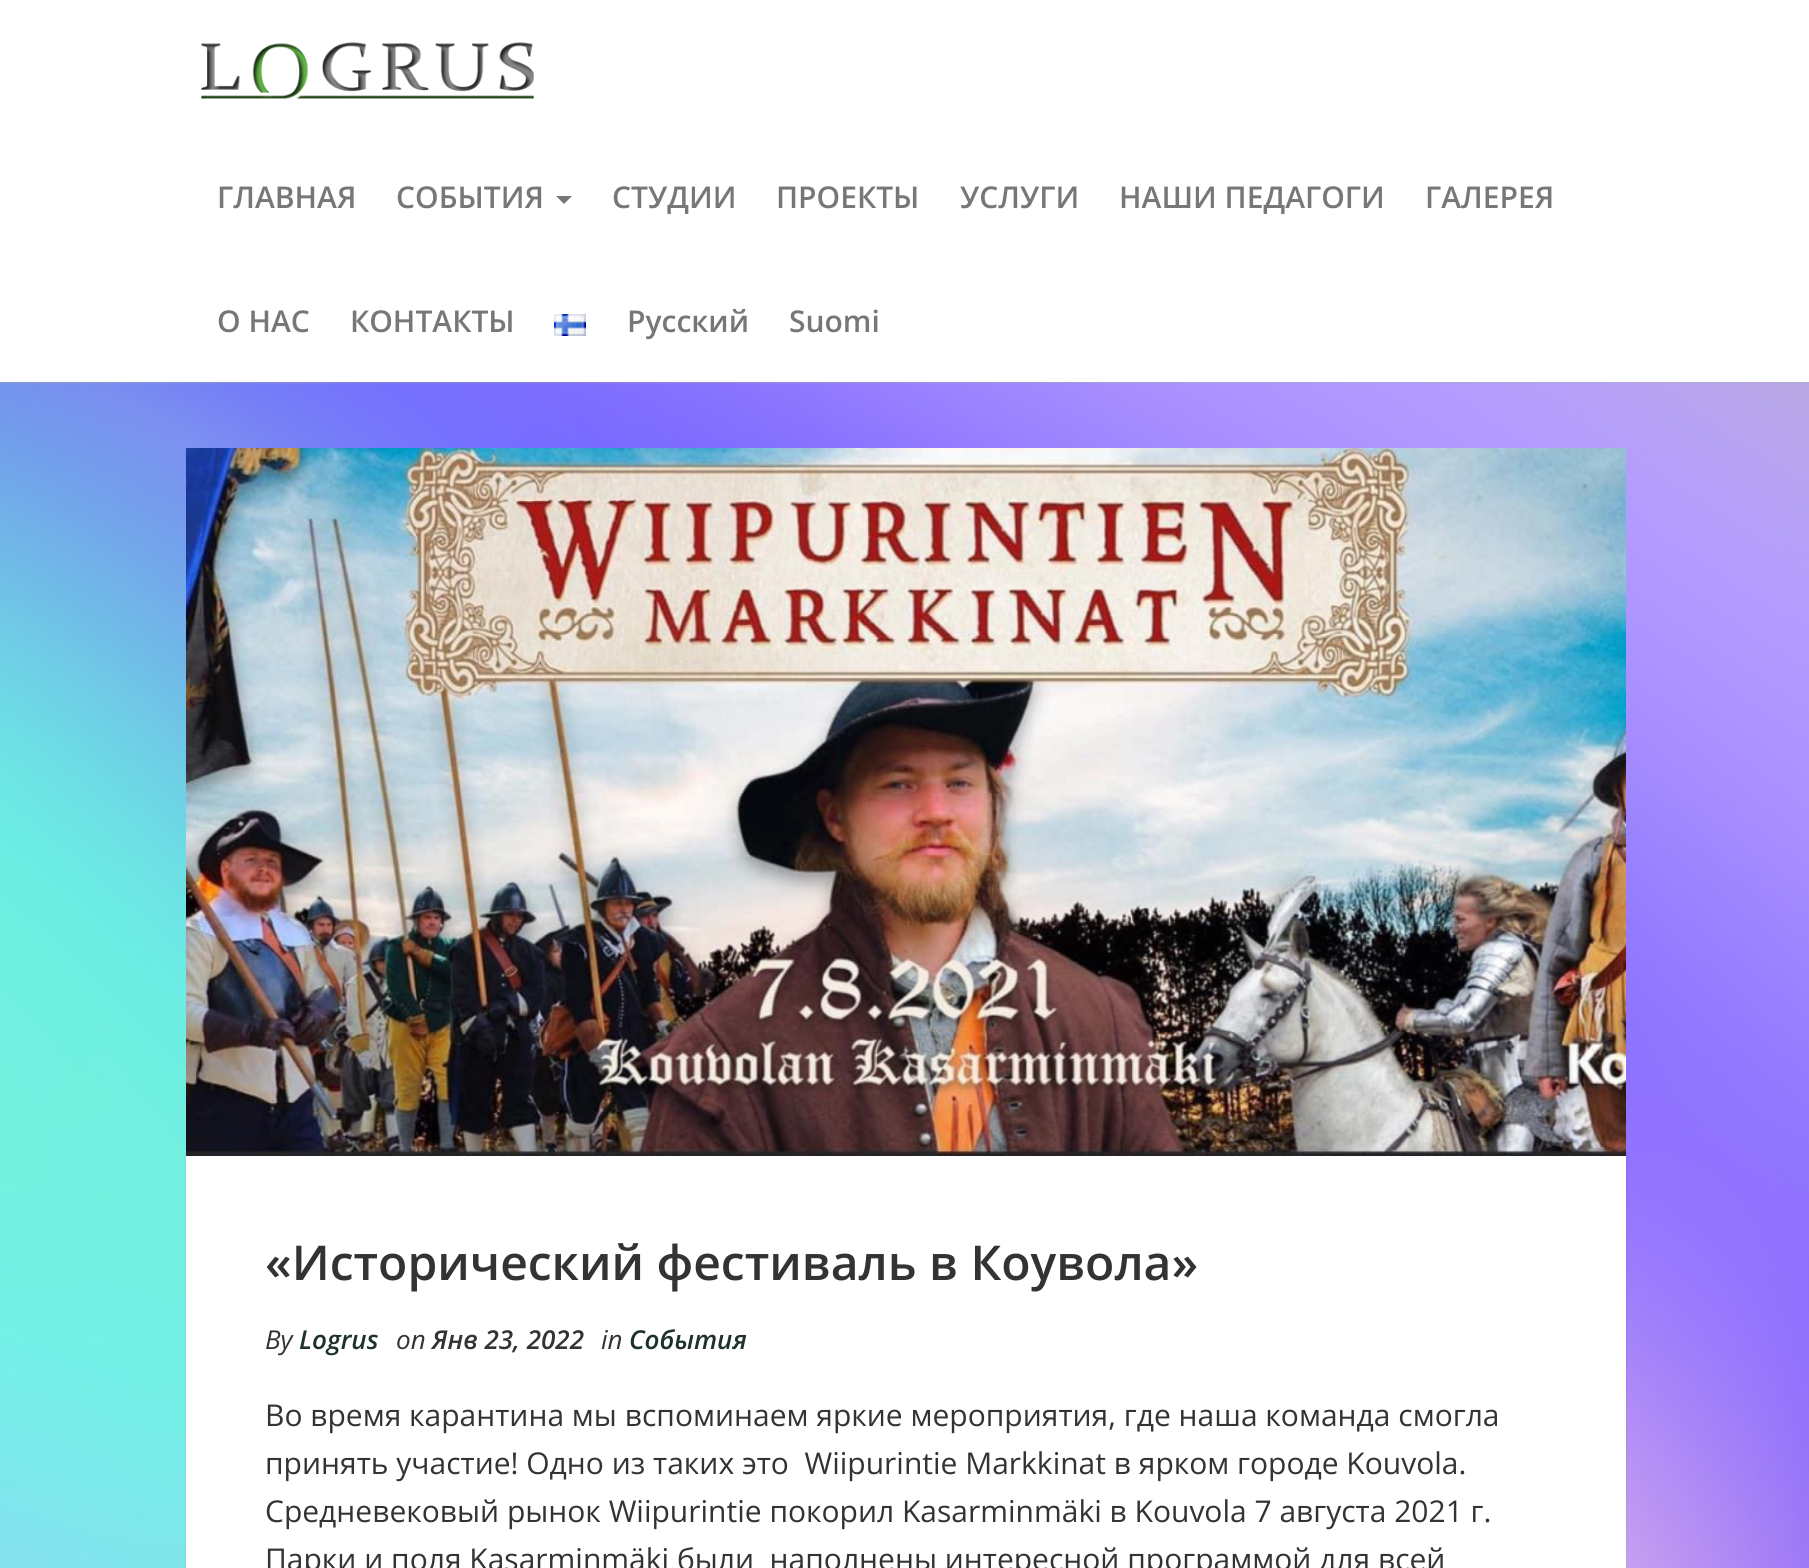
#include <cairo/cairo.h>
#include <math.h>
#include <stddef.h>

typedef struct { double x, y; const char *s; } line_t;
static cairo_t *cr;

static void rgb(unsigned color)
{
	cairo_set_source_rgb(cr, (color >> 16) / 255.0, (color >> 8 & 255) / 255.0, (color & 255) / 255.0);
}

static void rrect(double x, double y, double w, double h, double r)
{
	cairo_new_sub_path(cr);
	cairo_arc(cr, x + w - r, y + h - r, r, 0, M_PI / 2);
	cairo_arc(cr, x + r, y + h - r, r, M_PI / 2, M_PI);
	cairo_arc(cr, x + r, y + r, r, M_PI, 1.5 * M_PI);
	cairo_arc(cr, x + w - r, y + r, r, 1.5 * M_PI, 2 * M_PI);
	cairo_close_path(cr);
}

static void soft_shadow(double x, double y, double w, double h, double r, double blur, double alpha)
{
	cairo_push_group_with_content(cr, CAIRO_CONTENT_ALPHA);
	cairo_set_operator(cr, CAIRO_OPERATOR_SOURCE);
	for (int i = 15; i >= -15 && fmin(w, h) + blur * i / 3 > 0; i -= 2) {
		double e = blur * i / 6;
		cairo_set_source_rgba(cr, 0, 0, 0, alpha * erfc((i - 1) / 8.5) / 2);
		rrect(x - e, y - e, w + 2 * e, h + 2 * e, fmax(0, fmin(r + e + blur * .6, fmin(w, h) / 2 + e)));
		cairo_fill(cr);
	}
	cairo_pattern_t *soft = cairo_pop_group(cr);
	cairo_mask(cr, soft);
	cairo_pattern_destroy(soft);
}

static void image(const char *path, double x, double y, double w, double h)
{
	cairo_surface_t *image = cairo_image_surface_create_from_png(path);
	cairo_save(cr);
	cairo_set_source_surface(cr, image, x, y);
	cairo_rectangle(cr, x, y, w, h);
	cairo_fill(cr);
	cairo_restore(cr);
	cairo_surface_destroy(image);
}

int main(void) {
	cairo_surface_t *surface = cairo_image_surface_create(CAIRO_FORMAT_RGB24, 1809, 1568);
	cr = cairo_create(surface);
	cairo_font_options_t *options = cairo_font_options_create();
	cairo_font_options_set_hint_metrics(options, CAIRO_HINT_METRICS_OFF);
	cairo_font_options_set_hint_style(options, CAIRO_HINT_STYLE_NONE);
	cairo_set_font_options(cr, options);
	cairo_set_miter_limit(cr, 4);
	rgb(0xffffff);
	cairo_paint(cr);
	image("img/1.png", 0, 382, 1809, 1186);
	rgb(0xaaaaaa);
	soft_shadow(0, 0, 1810, 382, 0, 1, 1);
	rgb(0xffffff);
	cairo_rectangle(cr, 0, 0, 1809, 382);
	cairo_fill(cr);
	image("img/2.png", 201, 42, 333, 57);
	rgb(0x777777);
	cairo_new_path(cr);
	cairo_move_to(cr, 556, 196);
	cairo_line_to(cr, 572, 196);
	cairo_line_to(cr, 564, 204);
	cairo_close_path(cr);
	cairo_fill(cr);
	image("img/3.png", 554, 314, 32, 22);
	image("img/4.png", 186, 448, 1440, 708);
	rgb(0x000000);
	soft_shadow(186, 1156, 1440, 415, 0, 1, 0.15);
	rgb(0xffffff);
	cairo_rectangle(cr, 186, 1156, 1440, 412);
	cairo_fill(cr);
	cairo_select_font_face(cr, "Open Sans SemiBold", CAIRO_FONT_SLANT_NORMAL, CAIRO_FONT_WEIGHT_NORMAL);
	cairo_set_font_size(cr, 30);
	rgb(0x777777);
	{
		static const line_t items[] = {
			{217, 208, "ГЛАВНАЯ"},
			{396, 208, "СОБЫТИЯ"},
			{612, 208, "СТУДИИ"},
			{776, 208, "ПРОЕКТЫ"},
			{960, 208, "УСЛУГИ"},
			{1119, 208, "НАШИ ПЕДАГОГИ"},
			{1425, 208, "ГАЛЕРЕЯ"},
			{217, 332, "О НАС"},
			{350, 332, "КОНТАКТЫ"},
			{627, 332, "Русский"},
			{789, 332, "Suomi"},
		};
		for (size_t i = 0; i < sizeof items / sizeof *items; i++) {
			cairo_move_to(cr, items[i].x, items[i].y);
			cairo_show_text(cr, items[i].s);
		}
	}
	cairo_set_font_size(cr, 48);
	rgb(0x333333);
	cairo_move_to(cr, 265, 1280);
	cairo_show_text(cr, "«Исторический фестиваль в Коувола»");
	cairo_select_font_face(cr, "Open Sans", CAIRO_FONT_SLANT_ITALIC, CAIRO_FONT_WEIGHT_NORMAL);
	cairo_set_font_size(cr, 26);
	cairo_move_to(cr, 265, 1349);
	cairo_show_text(cr, "By");
	cairo_select_font_face(cr, "Open Sans SemiBold", CAIRO_FONT_SLANT_ITALIC, CAIRO_FONT_WEIGHT_NORMAL);
	rgb(0x1d3329);
	cairo_move_to(cr, 299, 1349);
	cairo_show_text(cr, "Logrus");
	cairo_select_font_face(cr, "Open Sans", CAIRO_FONT_SLANT_ITALIC, CAIRO_FONT_WEIGHT_NORMAL);
	rgb(0x333333);
	cairo_move_to(cr, 396, 1349);
	cairo_show_text(cr, "on");
	cairo_select_font_face(cr, "Open Sans SemiBold", CAIRO_FONT_SLANT_ITALIC, CAIRO_FONT_WEIGHT_NORMAL);
	cairo_move_to(cr, 432, 1349);
	cairo_show_text(cr, "Янв 23, 2022");
	cairo_select_font_face(cr, "Open Sans", CAIRO_FONT_SLANT_ITALIC, CAIRO_FONT_WEIGHT_NORMAL);
	cairo_move_to(cr, 601, 1349);
	cairo_show_text(cr, "in");
	cairo_select_font_face(cr, "Open Sans SemiBold", CAIRO_FONT_SLANT_ITALIC, CAIRO_FONT_WEIGHT_NORMAL);
	rgb(0x1d3329);
	cairo_move_to(cr, 629, 1349);
	cairo_show_text(cr, "События");
	cairo_select_font_face(cr, "Open Sans", CAIRO_FONT_SLANT_NORMAL, CAIRO_FONT_WEIGHT_NORMAL);
	cairo_set_font_size(cr, 30);
	rgb(0x333333);
	{
		static const line_t items[] = {
			{265, 1426, "Во время карантина мы вспоминаем яркие мероприятия, где наша команда смогла"},
			{265, 1474, "принять участие! Одно из таких это  Wiipurintie Markkinat в ярком городе Kouvola."},
			{265, 1522, "Средневековый рынок Wiipurintie покорил Kasarminmäki в Kouvola 7 августа 2021 г."},
			{265, 1570, "Парки и поля Kasarminmäki были  наполнены интересной программой для всей"},
		};
		for (size_t i = 0; i < sizeof items / sizeof *items; i++) {
			cairo_move_to(cr, items[i].x, items[i].y);
			cairo_show_text(cr, items[i].s);
		}
	}
	cairo_surface_write_to_png(surface, "page.png");
	cairo_font_options_destroy(options);
	cairo_destroy(cr);
	cairo_surface_destroy(surface);
	return 0;
}
